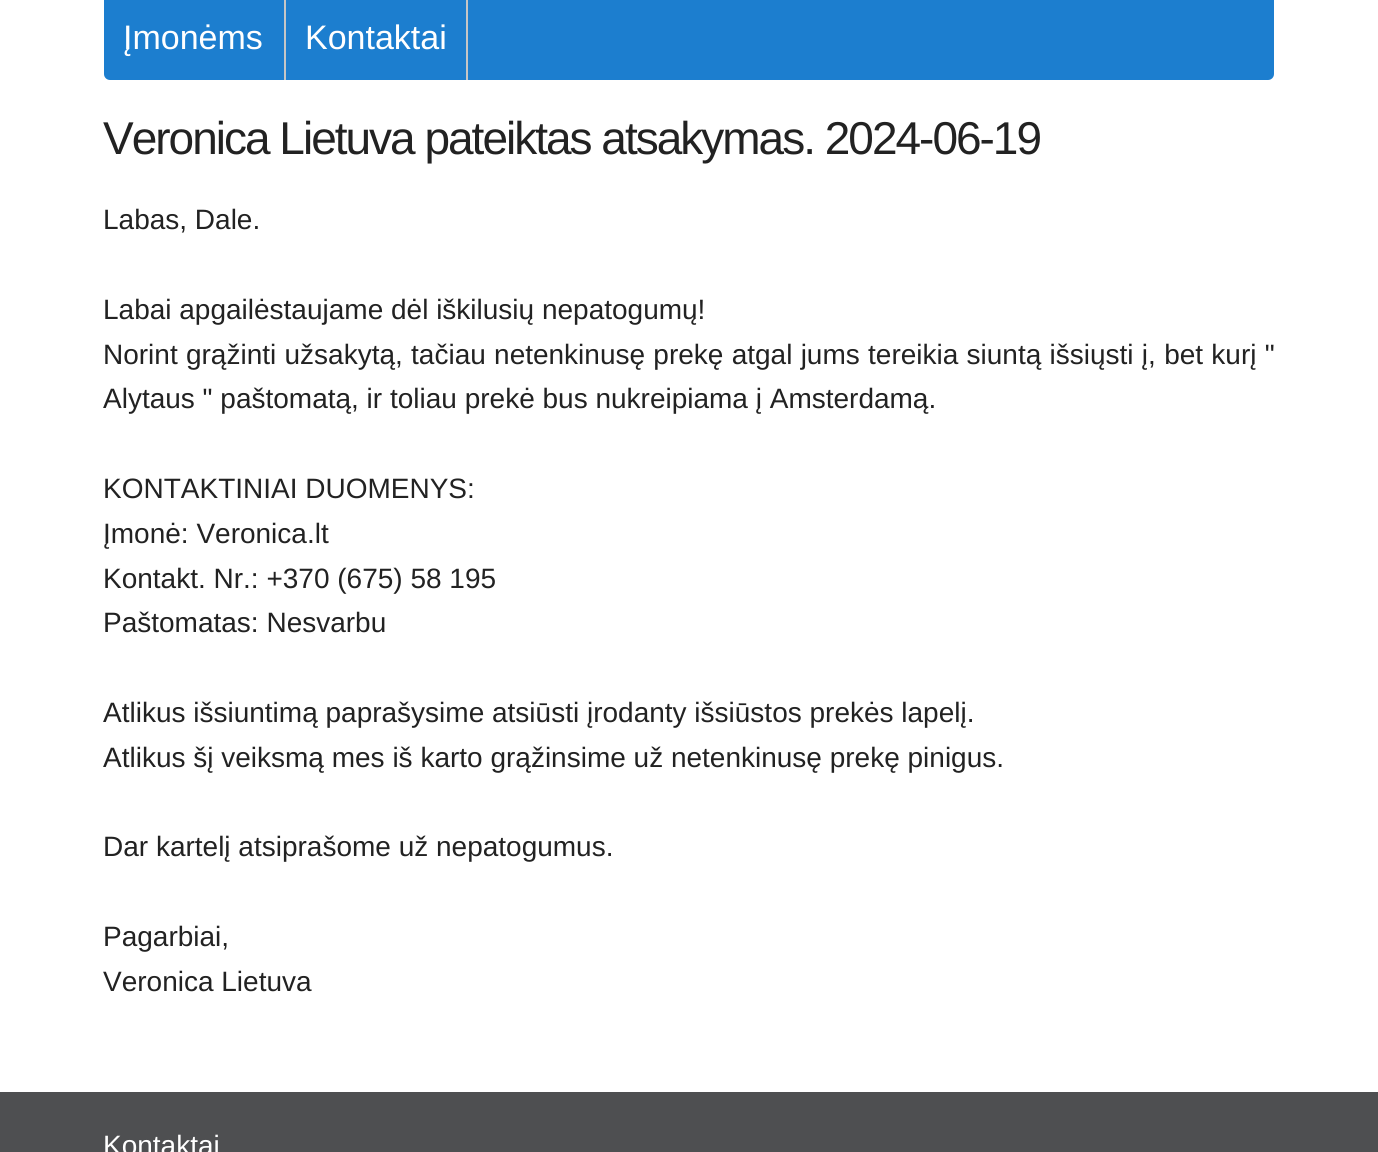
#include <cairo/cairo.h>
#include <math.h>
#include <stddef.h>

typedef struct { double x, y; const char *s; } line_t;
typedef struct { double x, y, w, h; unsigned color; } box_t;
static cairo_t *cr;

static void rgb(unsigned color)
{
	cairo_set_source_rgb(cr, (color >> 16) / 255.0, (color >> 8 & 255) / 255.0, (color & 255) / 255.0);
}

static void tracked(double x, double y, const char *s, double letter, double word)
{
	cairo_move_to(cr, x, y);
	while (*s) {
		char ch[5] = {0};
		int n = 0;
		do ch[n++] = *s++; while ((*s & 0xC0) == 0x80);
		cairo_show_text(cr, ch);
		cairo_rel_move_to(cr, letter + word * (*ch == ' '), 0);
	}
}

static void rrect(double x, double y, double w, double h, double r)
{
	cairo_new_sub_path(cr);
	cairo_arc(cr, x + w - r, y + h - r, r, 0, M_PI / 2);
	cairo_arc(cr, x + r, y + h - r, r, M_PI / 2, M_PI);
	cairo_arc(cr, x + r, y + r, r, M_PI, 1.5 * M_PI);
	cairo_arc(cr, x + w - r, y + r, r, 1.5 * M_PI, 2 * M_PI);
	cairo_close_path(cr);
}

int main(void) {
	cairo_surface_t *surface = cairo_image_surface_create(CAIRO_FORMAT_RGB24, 1378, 1152);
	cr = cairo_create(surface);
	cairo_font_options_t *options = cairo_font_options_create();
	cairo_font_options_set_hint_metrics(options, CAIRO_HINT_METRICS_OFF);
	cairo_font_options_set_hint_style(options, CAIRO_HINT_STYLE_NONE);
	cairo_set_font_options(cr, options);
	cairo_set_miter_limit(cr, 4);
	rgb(0xffffff);
	cairo_paint(cr);
	rgb(0x1c7ecf);
	rrect(104, -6, 1170, 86, 6);
	cairo_fill(cr);
	{
		static const box_t items[] = {
			{284, 0, 2, 80, 0xc6c6c6},
			{466, 0, 2, 80, 0xc6c6c6},
			{0, 1092, 1378, 60, 0x4e4f51},
		};
		for (size_t i = 0; i < sizeof items / sizeof *items; i++) {
			rgb(items[i].color);
			cairo_rectangle(cr, items[i].x, items[i].y, items[i].w, items[i].h);
			cairo_fill(cr);
		}
	}
	cairo_select_font_face(cr, "Liberation Sans", CAIRO_FONT_SLANT_NORMAL, CAIRO_FONT_WEIGHT_NORMAL);
	cairo_set_font_size(cr, 34);
	rgb(0xffffff);
	cairo_move_to(cr, 123, 49);
	cairo_show_text(cr, "Įmonėms");
	cairo_move_to(cr, 305, 49);
	cairo_show_text(cr, "Kontaktai");
	cairo_set_font_size(cr, 46);
	rgb(0x222222);
	tracked(103, 154, "Veronica Lietuva pateiktas atsakymas. 2024-06-19", -2, 0);
	cairo_set_font_size(cr, 28);
	cairo_move_to(cr, 103, 229);
	cairo_show_text(cr, "Labas, Dale.");
	cairo_move_to(cr, 103, 319);
	cairo_show_text(cr, "Labai apgailėstaujame dėl iškilusių nepatogumų!");
	tracked(103, 364, "Norint grąžinti užsakytą, tačiau netenkinusę prekę atgal jums tereikia siuntą išsiųsti į, bet kurį \"", 0, 0.5);
	{
		static const line_t items[] = {
			{103, 408, "Alytaus \" paštomatą, ir toliau prekė bus nukreipiama į Amsterdamą."},
			{103, 498, "KONTAKTINIAI DUOMENYS:"},
			{103, 543, "Įmonė: Veronica.lt"},
			{103, 588, "Kontakt. Nr.: +370 (675) 58 195"},
			{103, 632, "Paštomatas: Nesvarbu"},
			{103, 722, "Atlikus išsiuntimą paprašysime atsiūsti įrodanty išsiūstos prekės lapelį."},
			{103, 767, "Atlikus šį veiksmą mes iš karto grąžinsime už netenkinusę prekę pinigus."},
			{103, 856, "Dar kartelį atsiprašome už nepatogumus."},
			{103, 946, "Pagarbiai,"},
			{103, 991, "Veronica Lietuva"},
		};
		for (size_t i = 0; i < sizeof items / sizeof *items; i++) {
			cairo_move_to(cr, items[i].x, items[i].y);
			cairo_show_text(cr, items[i].s);
		}
	}
	rgb(0xffffff);
	cairo_move_to(cr, 103, 1155);
	cairo_show_text(cr, "Kontaktai");
	cairo_surface_write_to_png(surface, "page.png");
	cairo_font_options_destroy(options);
	cairo_destroy(cr);
	cairo_surface_destroy(surface);
	return 0;
}
